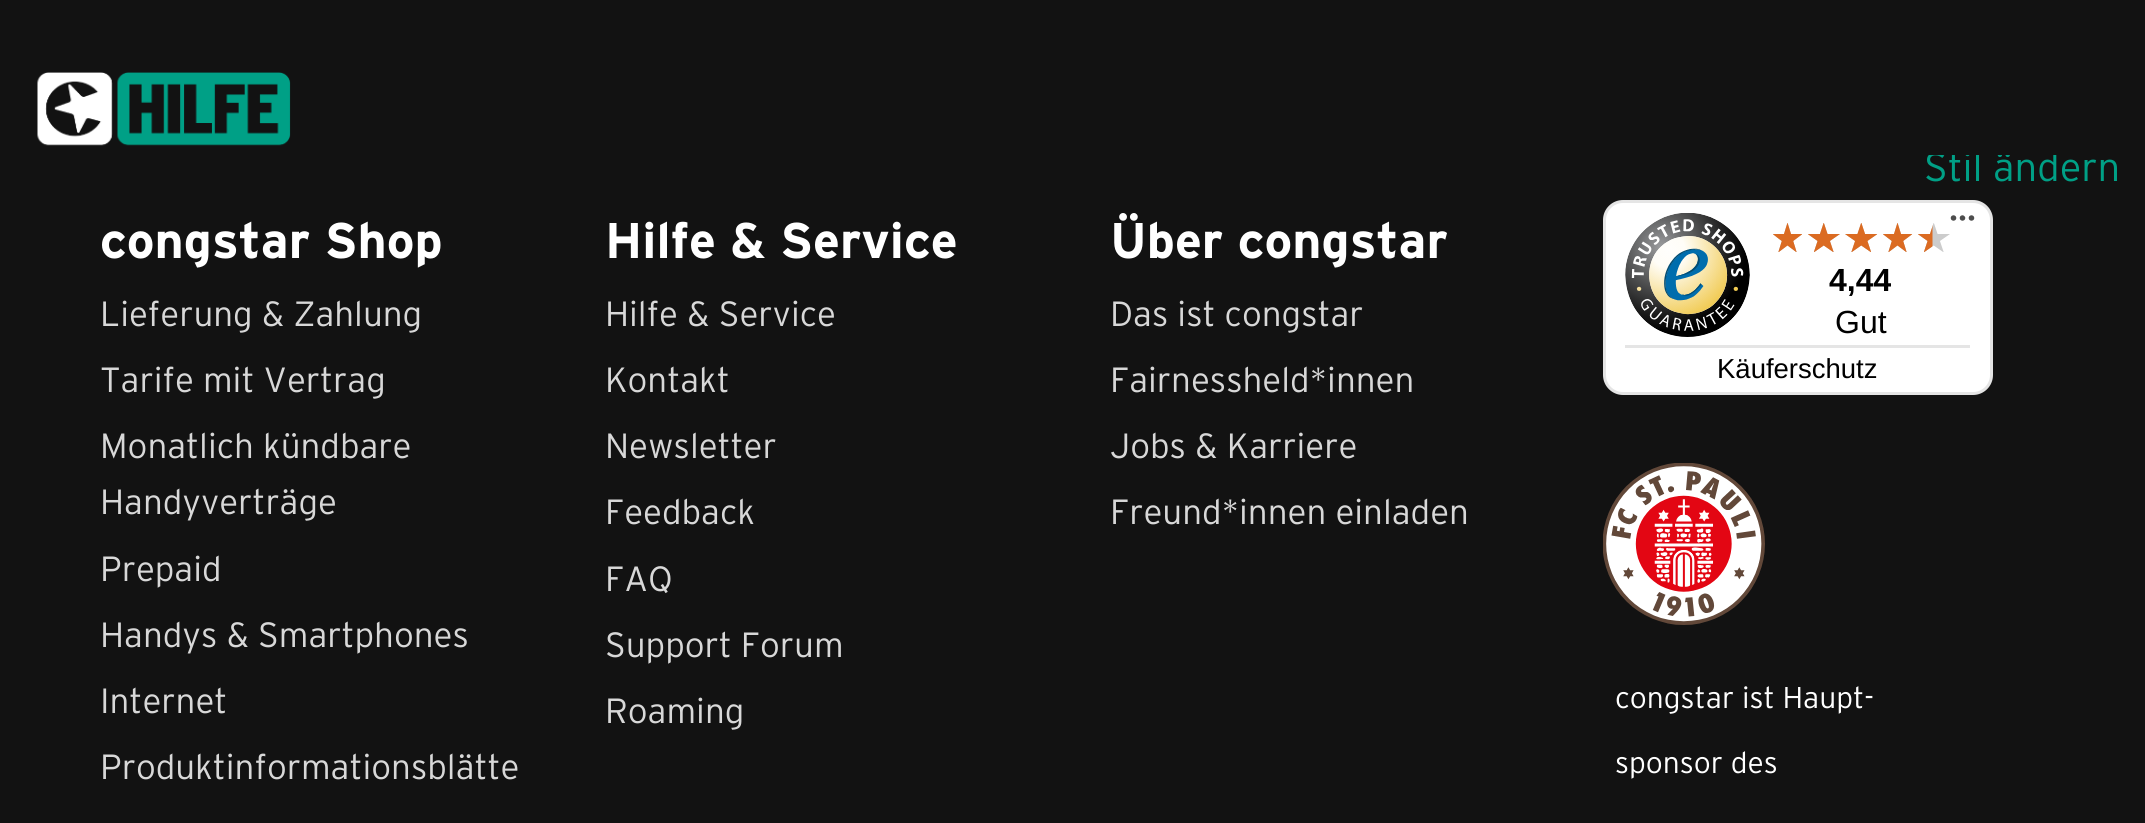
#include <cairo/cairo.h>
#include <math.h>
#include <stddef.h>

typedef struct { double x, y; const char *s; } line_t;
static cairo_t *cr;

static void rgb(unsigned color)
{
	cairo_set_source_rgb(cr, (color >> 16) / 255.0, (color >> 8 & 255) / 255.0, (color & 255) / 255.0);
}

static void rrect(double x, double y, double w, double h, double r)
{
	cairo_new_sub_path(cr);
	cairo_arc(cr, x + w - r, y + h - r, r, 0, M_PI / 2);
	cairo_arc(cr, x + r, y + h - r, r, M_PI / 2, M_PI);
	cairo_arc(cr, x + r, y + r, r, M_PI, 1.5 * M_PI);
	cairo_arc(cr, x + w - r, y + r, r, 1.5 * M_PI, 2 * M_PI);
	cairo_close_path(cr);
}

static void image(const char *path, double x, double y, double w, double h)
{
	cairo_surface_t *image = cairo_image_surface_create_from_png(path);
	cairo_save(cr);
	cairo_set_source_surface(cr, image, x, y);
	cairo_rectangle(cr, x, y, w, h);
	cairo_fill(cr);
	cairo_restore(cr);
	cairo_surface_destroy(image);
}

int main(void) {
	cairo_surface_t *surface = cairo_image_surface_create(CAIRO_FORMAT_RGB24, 2145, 823);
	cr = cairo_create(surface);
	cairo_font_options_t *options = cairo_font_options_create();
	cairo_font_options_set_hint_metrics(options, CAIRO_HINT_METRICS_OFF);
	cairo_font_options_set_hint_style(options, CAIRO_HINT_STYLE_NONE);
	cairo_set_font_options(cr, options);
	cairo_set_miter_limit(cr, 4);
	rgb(0x121212);
	cairo_paint(cr);
	image("img/1.png", 37, 72, 254, 74);
	rgb(0xffffff);
	rrect(1604.5, 201.5, 387, 192, 18.5);
	cairo_fill_preserve(cr);
	rgb(0xe5e5e5);
	cairo_set_line_width(cr, 3);
	cairo_stroke(cr);
	image("img/2.png", 1950, 215, 25, 6);
	image("img/3.png", 1625, 213, 125, 124);
	image("img/4.png", 1773, 223, 29, 29);
	image("img/5.png", 1808, 223, 32, 29);
	image("img/6.png", 1845, 223, 32, 29);
	image("img/7.png", 1883, 223, 29, 29);
	image("img/8.png", 1918, 223, 32, 29);
	image("img/9.png", 1773, 223, 29, 29);
	image("img/10.png", 1808, 223, 32, 29);
	image("img/11.png", 1845, 223, 33, 29);
	image("img/12.png", 1883, 223, 30, 29);
	image("img/13.png", 1918, 225, 15, 27);
	cairo_rectangle(cr, 1625, 345, 345, 3);
	cairo_fill(cr);
	image("img/14.png", 1603, 463, 162, 162);
	cairo_select_font_face(cr, "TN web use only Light", CAIRO_FONT_SLANT_NORMAL, CAIRO_FONT_WEIGHT_NORMAL);
	cairo_set_font_size(cr, 40);
	rgb(0x00a086);
	cairo_move_to(cr, 1924, 181);
	cairo_show_text(cr, "Stil ändern");
	rgb(0x121212);
	cairo_rectangle(cr, 1928, 151, 129, 4);
	cairo_fill(cr);
	cairo_select_font_face(cr, "TN web use only", CAIRO_FONT_SLANT_NORMAL, CAIRO_FONT_WEIGHT_BOLD);
	cairo_set_font_size(cr, 50);
	rgb(0xffffff);
	cairo_move_to(cr, 100, 258);
	cairo_show_text(cr, "congstar Shop");
	cairo_select_font_face(cr, "TN web use only Light", CAIRO_FONT_SLANT_NORMAL, CAIRO_FONT_WEIGHT_NORMAL);
	cairo_set_font_size(cr, 35);
	rgb(0xd8d8d8);
	{
		static const line_t items[] = {
			{100, 326, "Lieferung & Zahlung"},
			{100, 392, "Tarife mit Vertrag"},
			{100, 458, "Monatlich kündbare"},
			{100, 514, "Handyverträge"},
			{100, 581, "Prepaid"},
			{100, 647, "Handys & Smartphones"},
			{100, 713, "Internet"},
			{100, 779, "Produktinformationsblätte"},
		};
		for (size_t i = 0; i < sizeof items / sizeof *items; i++) {
			cairo_move_to(cr, items[i].x, items[i].y);
			cairo_show_text(cr, items[i].s);
		}
	}
	cairo_select_font_face(cr, "TN web use only", CAIRO_FONT_SLANT_NORMAL, CAIRO_FONT_WEIGHT_BOLD);
	cairo_set_font_size(cr, 50);
	rgb(0xffffff);
	cairo_move_to(cr, 605, 258);
	cairo_show_text(cr, "Hilfe & Service");
	cairo_select_font_face(cr, "TN web use only Light", CAIRO_FONT_SLANT_NORMAL, CAIRO_FONT_WEIGHT_NORMAL);
	cairo_set_font_size(cr, 35);
	rgb(0xd8d8d8);
	{
		static const line_t items[] = {
			{605, 326, "Hilfe & Service"},
			{605, 392, "Kontakt"},
			{605, 458, "Newsletter"},
			{605, 524, "Feedback"},
			{605, 591, "FAQ"},
			{605, 657, "Support Forum"},
			{605, 723, "Roaming"},
		};
		for (size_t i = 0; i < sizeof items / sizeof *items; i++) {
			cairo_move_to(cr, items[i].x, items[i].y);
			cairo_show_text(cr, items[i].s);
		}
	}
	cairo_select_font_face(cr, "TN web use only", CAIRO_FONT_SLANT_NORMAL, CAIRO_FONT_WEIGHT_BOLD);
	cairo_set_font_size(cr, 50);
	rgb(0xffffff);
	cairo_move_to(cr, 1110, 258);
	cairo_show_text(cr, "Über congstar");
	cairo_select_font_face(cr, "TN web use only Light", CAIRO_FONT_SLANT_NORMAL, CAIRO_FONT_WEIGHT_NORMAL);
	cairo_set_font_size(cr, 35);
	rgb(0xd8d8d8);
	{
		static const line_t items[] = {
			{1110, 326, "Das ist congstar"},
			{1110, 392, "Fairnessheld*innen"},
			{1110, 458, "Jobs & Karriere"},
			{1110, 524, "Freund*innen einladen"},
		};
		for (size_t i = 0; i < sizeof items / sizeof *items; i++) {
			cairo_move_to(cr, items[i].x, items[i].y);
			cairo_show_text(cr, items[i].s);
		}
	}
	cairo_select_font_face(cr, "Liberation Sans", CAIRO_FONT_SLANT_NORMAL, CAIRO_FONT_WEIGHT_BOLD);
	cairo_set_font_size(cr, 32);
	rgb(0x000000);
	cairo_move_to(cr, 1829, 291);
	cairo_show_text(cr, "4,44");
	cairo_select_font_face(cr, "Liberation Sans", CAIRO_FONT_SLANT_NORMAL, CAIRO_FONT_WEIGHT_NORMAL);
	cairo_move_to(cr, 1835, 333);
	cairo_show_text(cr, "Gut");
	cairo_set_font_size(cr, 27.5);
	cairo_move_to(cr, 1717, 378);
	cairo_show_text(cr, "Käuferschutz");
	cairo_select_font_face(cr, "TN web use only Light", CAIRO_FONT_SLANT_NORMAL, CAIRO_FONT_WEIGHT_NORMAL);
	cairo_set_font_size(cr, 30);
	rgb(0xffffff);
	cairo_move_to(cr, 1615, 708);
	cairo_show_text(cr, "congstar ist Haupt-");
	cairo_move_to(cr, 1615, 773);
	cairo_show_text(cr, "sponsor des");
	cairo_surface_write_to_png(surface, "page.png");
	cairo_font_options_destroy(options);
	cairo_destroy(cr);
	cairo_surface_destroy(surface);
	return 0;
}
